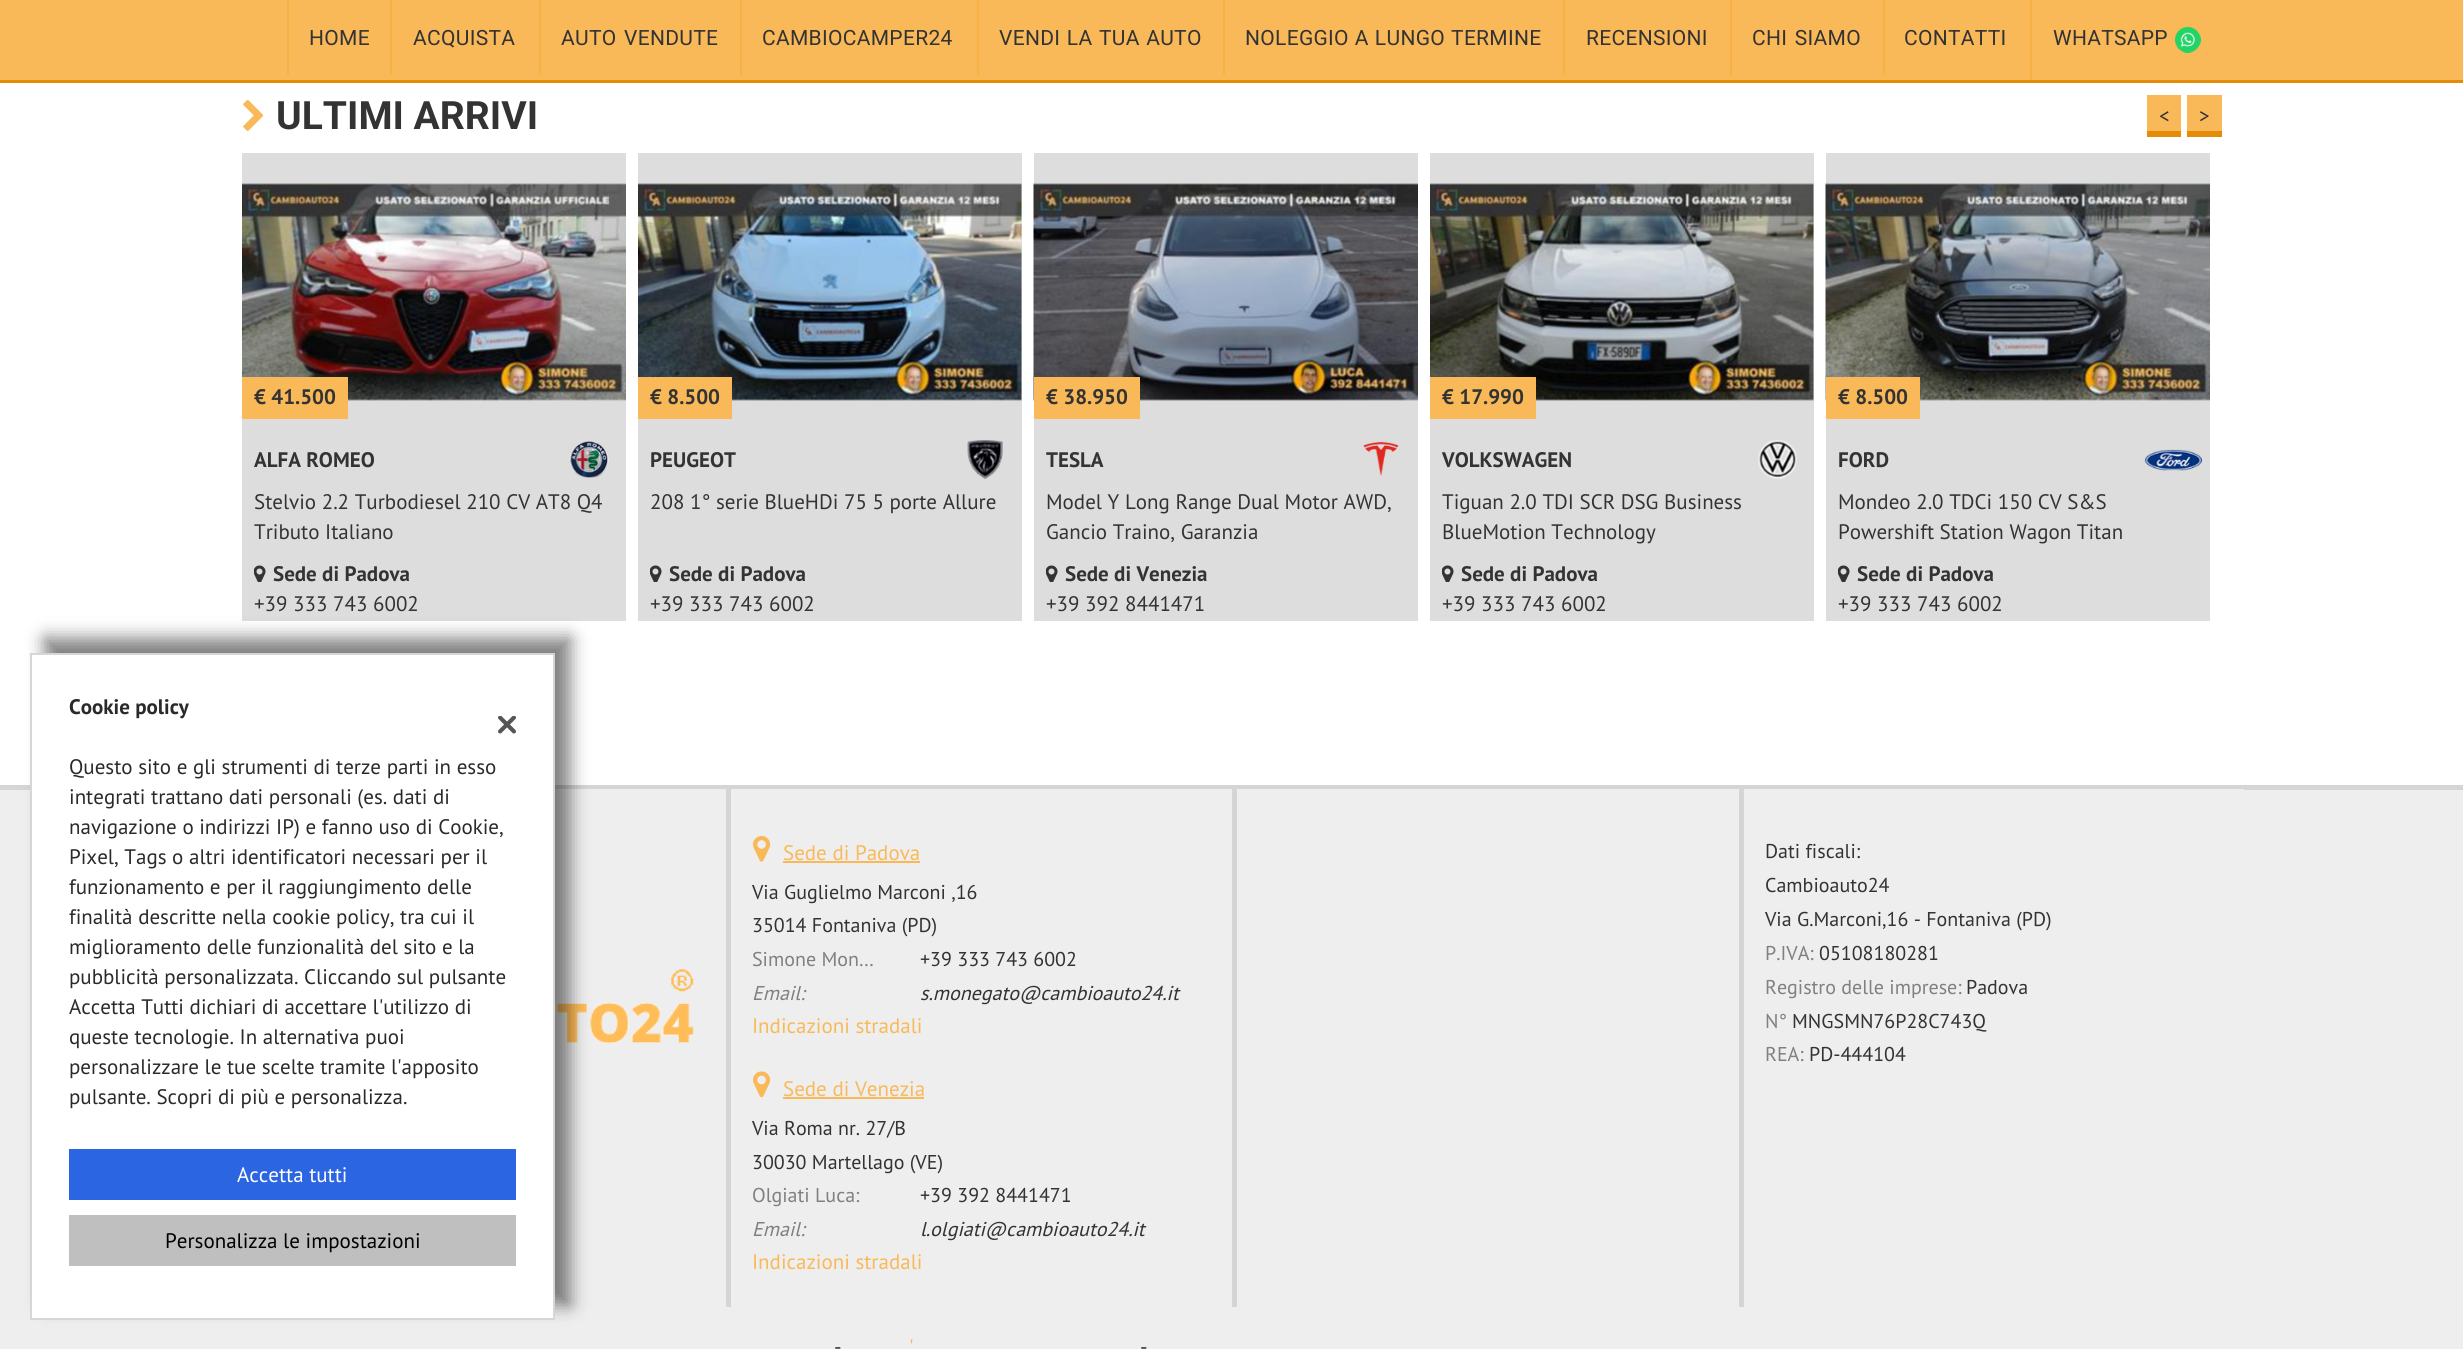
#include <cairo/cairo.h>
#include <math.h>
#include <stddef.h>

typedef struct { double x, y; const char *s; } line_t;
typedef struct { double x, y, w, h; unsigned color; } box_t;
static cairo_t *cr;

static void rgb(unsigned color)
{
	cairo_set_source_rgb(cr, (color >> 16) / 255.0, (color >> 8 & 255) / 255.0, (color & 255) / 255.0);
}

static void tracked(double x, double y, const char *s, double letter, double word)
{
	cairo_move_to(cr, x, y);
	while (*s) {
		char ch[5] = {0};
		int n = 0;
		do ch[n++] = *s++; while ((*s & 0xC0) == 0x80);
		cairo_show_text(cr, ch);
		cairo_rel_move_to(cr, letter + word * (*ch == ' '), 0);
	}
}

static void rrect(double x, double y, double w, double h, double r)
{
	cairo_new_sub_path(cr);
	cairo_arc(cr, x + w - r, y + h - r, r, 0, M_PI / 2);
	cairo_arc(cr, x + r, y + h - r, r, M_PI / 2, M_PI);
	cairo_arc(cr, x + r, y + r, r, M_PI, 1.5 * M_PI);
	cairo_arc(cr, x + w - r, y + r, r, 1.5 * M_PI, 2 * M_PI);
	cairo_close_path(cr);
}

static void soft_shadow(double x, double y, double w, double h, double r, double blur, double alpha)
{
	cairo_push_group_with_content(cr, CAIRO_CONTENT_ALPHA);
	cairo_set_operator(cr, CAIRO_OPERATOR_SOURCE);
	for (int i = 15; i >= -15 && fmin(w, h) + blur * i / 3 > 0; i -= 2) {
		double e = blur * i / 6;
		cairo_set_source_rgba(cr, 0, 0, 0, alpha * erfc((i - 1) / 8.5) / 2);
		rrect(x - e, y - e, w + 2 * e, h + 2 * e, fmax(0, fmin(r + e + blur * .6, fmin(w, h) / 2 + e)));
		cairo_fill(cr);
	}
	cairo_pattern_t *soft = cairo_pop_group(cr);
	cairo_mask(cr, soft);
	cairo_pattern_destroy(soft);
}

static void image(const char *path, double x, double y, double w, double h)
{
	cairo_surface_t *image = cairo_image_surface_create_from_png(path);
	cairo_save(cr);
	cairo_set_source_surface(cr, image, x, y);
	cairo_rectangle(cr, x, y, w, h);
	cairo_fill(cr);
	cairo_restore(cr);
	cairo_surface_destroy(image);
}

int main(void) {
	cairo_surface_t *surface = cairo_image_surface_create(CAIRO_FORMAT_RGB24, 2463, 1349);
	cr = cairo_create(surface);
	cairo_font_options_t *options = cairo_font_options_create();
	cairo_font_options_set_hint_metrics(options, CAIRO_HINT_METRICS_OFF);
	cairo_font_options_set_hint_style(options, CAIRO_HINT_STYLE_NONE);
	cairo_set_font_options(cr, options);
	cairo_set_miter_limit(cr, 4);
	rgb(0xffffff);
	cairo_paint(cr);
	{
		static const box_t items[] = {
			{0, 80, 2463, 3, 0xe48c08},
			{0, 0, 2463, 80, 0xf9b959},
			{287, 0, 2, 75, 0xf8b145},
			{390, 0, 2, 75, 0xf8b145},
			{539, 0, 2, 75, 0xf8b145},
			{740, 0, 2, 75, 0xf8b145},
			{977, 0, 2, 75, 0xf8b145},
			{1223, 0, 2, 75, 0xf8b145},
			{1563, 0, 2, 75, 0xf8b145},
			{1730, 0, 2, 75, 0xf8b145},
			{1883, 0, 2, 75, 0xf8b145},
			{2030, 0, 2, 80, 0xf8b145},
		};
		for (size_t i = 0; i < sizeof items / sizeof *items; i++) {
			rgb(items[i].color);
			cairo_rectangle(cr, items[i].x, items[i].y, items[i].w, items[i].h);
			cairo_fill(cr);
		}
	}
	image("img/1.png", 2175, 27, 26, 26);
	image("img/2.png", 243, 99, 21, 32);
	{
		static const box_t items[] = {
			{2147, 95, 34, 36, 0xf9b959},
			{2147, 131, 34, 6, 0xe48c08},
			{2187, 95, 35, 36, 0xf9b959},
			{2187, 131, 35, 6, 0xe48c08},
			{242, 153, 384, 468, 0xdddddd},
		};
		for (size_t i = 0; i < sizeof items / sizeof *items; i++) {
			rgb(items[i].color);
			cairo_rectangle(cr, items[i].x, items[i].y, items[i].w, items[i].h);
			cairo_fill(cr);
		}
	}
	image("img/3.png", 242, 183, 384, 218);
	rgb(0xf9b959);
	cairo_rectangle(cr, 242, 377, 106, 42);
	cairo_fill(cr);
	image("img/4.png", 569, 441, 40, 37);
	image("img/5.png", 254, 565, 12, 17);
	rgb(0xdddddd);
	cairo_rectangle(cr, 638, 153, 384, 468);
	cairo_fill(cr);
	image("img/6.png", 638, 183, 384, 218);
	rgb(0xf9b959);
	cairo_rectangle(cr, 638, 377, 94, 42);
	cairo_fill(cr);
	image("img/7.png", 967, 440, 36, 39);
	image("img/5.png", 650, 565, 12, 17);
	rgb(0xdddddd);
	cairo_rectangle(cr, 1034, 153, 384, 468);
	cairo_fill(cr);
	image("img/8.png", 1033, 183, 385, 218);
	rgb(0xf9b959);
	cairo_rectangle(cr, 1034, 377, 106, 42);
	cairo_fill(cr);
	image("img/9.png", 1363, 441, 36, 35);
	image("img/5.png", 1046, 565, 12, 17);
	rgb(0xdddddd);
	cairo_rectangle(cr, 1430, 153, 384, 468);
	cairo_fill(cr);
	image("img/10.png", 1430, 183, 384, 218);
	rgb(0xf9b959);
	cairo_rectangle(cr, 1430, 377, 106, 42);
	cairo_fill(cr);
	image("img/11.png", 1758, 440, 39, 39);
	image("img/5.png", 1442, 565, 12, 17);
	rgb(0xdddddd);
	cairo_rectangle(cr, 1826, 153, 384, 468);
	cairo_fill(cr);
	image("img/12.png", 1825, 183, 385, 218);
	rgb(0xf9b959);
	cairo_rectangle(cr, 1826, 377, 94, 42);
	cairo_fill(cr);
	image("img/13.png", 2144, 449, 58, 22);
	image("img/5.png", 1838, 565, 12, 17);
	{
		static const box_t items[] = {
			{0, 790, 2463, 559, 0xeeeeee},
			{0, 785, 2463, 5, 0xd5d5d5},
			{219, 789, 2025, 1, 0xeeeeee},
		};
		for (size_t i = 0; i < sizeof items / sizeof *items; i++) {
			rgb(items[i].color);
			cairo_rectangle(cr, items[i].x, items[i].y, items[i].w, items[i].h);
			cairo_fill(cr);
		}
	}
	image("img/15.png", 556, 969, 138, 75);
	rgb(0x000000);
	soft_shadow(45, 638, 525, 667, 0, 9, 0.5);
	rgb(0xffffff);
	cairo_rectangle(cr, 31, 654, 523, 665);
	cairo_fill_preserve(cr);
	rgb(0xd6d6d6);
	cairo_stroke(cr);
	image("img/14.png", 498, 716, 18, 18);
	{
		static const box_t items[] = {
			{69, 1149, 447, 51, 0x2c65e1},
			{69, 1215, 447, 51, 0xbfbfbf},
			{726, 789, 5, 518, 0xd5d5d5},
		};
		for (size_t i = 0; i < sizeof items / sizeof *items; i++) {
			rgb(items[i].color);
			cairo_rectangle(cr, items[i].x, items[i].y, items[i].w, items[i].h);
			cairo_fill(cr);
		}
	}
	image("img/16.png", 753, 835, 18, 27);
	rgb(0xf9b959);
	cairo_rectangle(cr, 783, 861, 137, 2);
	cairo_fill(cr);
	image("img/17.png", 753, 1071, 18, 27);
	{
		static const box_t items[] = {
			{783, 1097, 141, 2, 0xf9b959},
			{1232, 789, 5, 518, 0xd5d5d5},
			{1739, 789, 5, 518, 0xd5d5d5},
		};
		for (size_t i = 0; i < sizeof items / sizeof *items; i++) {
			rgb(items[i].color);
			cairo_rectangle(cr, items[i].x, items[i].y, items[i].w, items[i].h);
			cairo_fill(cr);
		}
	}
	cairo_select_font_face(cr, "Roboto", CAIRO_FONT_SLANT_NORMAL, CAIRO_FONT_WEIGHT_NORMAL);
	cairo_set_font_size(cr, 21);
	rgb(0x333333);
	tracked(309, 45, "HOME", 0.3, 0);
	tracked(413, 45, "ACQUISTA", 0.3, 0);
	tracked(561, 45, "AUTO VENDUTE", 0.3, 2);
	tracked(762, 45, "CAMBIOCAMPER24", 0.3, 0);
	tracked(999, 45, "VENDI LA TUA AUTO", 0.3, 1);
	tracked(1245, 45, "NOLEGGIO A LUNGO TERMINE", 0.3, 0.5);
	tracked(1586, 45, "RECENSIONI", 0.3, 0);
	tracked(1752, 45, "CHI SIAMO", 0.3, 2);
	tracked(1904, 45, "CONTATTI", 0.3, 0);
	tracked(2053, 45, "WHATSAPP", 0.3, 0);
	cairo_select_font_face(cr, "Roboto", CAIRO_FONT_SLANT_NORMAL, CAIRO_FONT_WEIGHT_BOLD);
	cairo_set_font_size(cr, 39);
	cairo_move_to(cr, 276, 129);
	cairo_show_text(cr, "ULTIMI ARRIVI");
	cairo_select_font_face(cr, "PT Sans", CAIRO_FONT_SLANT_NORMAL, CAIRO_FONT_WEIGHT_NORMAL);
	cairo_set_font_size(cr, 21);
	cairo_move_to(cr, 2159, 123);
	cairo_show_text(cr, "<");
	cairo_move_to(cr, 2199, 123);
	cairo_show_text(cr, ">");
	cairo_select_font_face(cr, "PT Sans", CAIRO_FONT_SLANT_NORMAL, CAIRO_FONT_WEIGHT_BOLD);
	cairo_move_to(cr, 254, 404);
	cairo_show_text(cr, "€ 41.500");
	cairo_move_to(cr, 254, 467);
	cairo_show_text(cr, "ALFA ROMEO");
	cairo_select_font_face(cr, "PT Sans", CAIRO_FONT_SLANT_NORMAL, CAIRO_FONT_WEIGHT_NORMAL);
	cairo_move_to(cr, 254, 509);
	cairo_show_text(cr, "Stelvio 2.2 Turbodiesel 210 CV AT8 Q4");
	cairo_move_to(cr, 254, 539);
	cairo_show_text(cr, "Tributo Italiano");
	cairo_select_font_face(cr, "PT Sans", CAIRO_FONT_SLANT_NORMAL, CAIRO_FONT_WEIGHT_BOLD);
	cairo_move_to(cr, 273, 581);
	cairo_show_text(cr, "Sede di Padova");
	cairo_select_font_face(cr, "PT Sans", CAIRO_FONT_SLANT_NORMAL, CAIRO_FONT_WEIGHT_NORMAL);
	cairo_move_to(cr, 254, 611);
	cairo_show_text(cr, "+39 333 743 6002");
	cairo_select_font_face(cr, "PT Sans", CAIRO_FONT_SLANT_NORMAL, CAIRO_FONT_WEIGHT_BOLD);
	cairo_move_to(cr, 650, 404);
	cairo_show_text(cr, "€ 8.500");
	cairo_move_to(cr, 650, 467);
	cairo_show_text(cr, "PEUGEOT");
	cairo_select_font_face(cr, "PT Sans", CAIRO_FONT_SLANT_NORMAL, CAIRO_FONT_WEIGHT_NORMAL);
	cairo_move_to(cr, 650, 509);
	cairo_show_text(cr, "208 1° serie BlueHDi 75 5 porte Allure");
	cairo_select_font_face(cr, "PT Sans", CAIRO_FONT_SLANT_NORMAL, CAIRO_FONT_WEIGHT_BOLD);
	cairo_move_to(cr, 669, 581);
	cairo_show_text(cr, "Sede di Padova");
	cairo_select_font_face(cr, "PT Sans", CAIRO_FONT_SLANT_NORMAL, CAIRO_FONT_WEIGHT_NORMAL);
	cairo_move_to(cr, 650, 611);
	cairo_show_text(cr, "+39 333 743 6002");
	cairo_select_font_face(cr, "PT Sans", CAIRO_FONT_SLANT_NORMAL, CAIRO_FONT_WEIGHT_BOLD);
	cairo_move_to(cr, 1046, 404);
	cairo_show_text(cr, "€ 38.950");
	cairo_save(cr);
	cairo_rectangle(cr, 1046, 446, 372, 30);
	cairo_clip(cr);
	cairo_move_to(cr, 1046, 467);
	cairo_show_text(cr, "TESLA");
	cairo_restore(cr);
	cairo_select_font_face(cr, "PT Sans", CAIRO_FONT_SLANT_NORMAL, CAIRO_FONT_WEIGHT_NORMAL);
	cairo_move_to(cr, 1046, 509);
	cairo_show_text(cr, "Model Y Long Range Dual Motor AWD,");
	cairo_move_to(cr, 1046, 539);
	cairo_show_text(cr, "Gancio Traino, Garanzia");
	cairo_select_font_face(cr, "PT Sans", CAIRO_FONT_SLANT_NORMAL, CAIRO_FONT_WEIGHT_BOLD);
	cairo_move_to(cr, 1065, 581);
	cairo_show_text(cr, "Sede di Venezia");
	cairo_select_font_face(cr, "PT Sans", CAIRO_FONT_SLANT_NORMAL, CAIRO_FONT_WEIGHT_NORMAL);
	cairo_move_to(cr, 1046, 611);
	cairo_show_text(cr, "+39 392 8441471");
	cairo_select_font_face(cr, "PT Sans", CAIRO_FONT_SLANT_NORMAL, CAIRO_FONT_WEIGHT_BOLD);
	cairo_move_to(cr, 1442, 404);
	cairo_show_text(cr, "€ 17.990");
	cairo_move_to(cr, 1442, 467);
	cairo_show_text(cr, "VOLKSWAGEN");
	cairo_select_font_face(cr, "PT Sans", CAIRO_FONT_SLANT_NORMAL, CAIRO_FONT_WEIGHT_NORMAL);
	cairo_move_to(cr, 1442, 509);
	cairo_show_text(cr, "Tiguan 2.0 TDI SCR DSG Business");
	cairo_move_to(cr, 1442, 539);
	cairo_show_text(cr, "BlueMotion Technology");
	cairo_select_font_face(cr, "PT Sans", CAIRO_FONT_SLANT_NORMAL, CAIRO_FONT_WEIGHT_BOLD);
	cairo_move_to(cr, 1461, 581);
	cairo_show_text(cr, "Sede di Padova");
	cairo_select_font_face(cr, "PT Sans", CAIRO_FONT_SLANT_NORMAL, CAIRO_FONT_WEIGHT_NORMAL);
	cairo_move_to(cr, 1442, 611);
	cairo_show_text(cr, "+39 333 743 6002");
	cairo_select_font_face(cr, "PT Sans", CAIRO_FONT_SLANT_NORMAL, CAIRO_FONT_WEIGHT_BOLD);
	cairo_move_to(cr, 1838, 404);
	cairo_show_text(cr, "€ 8.500");
	cairo_move_to(cr, 1838, 467);
	cairo_show_text(cr, "FORD");
	cairo_select_font_face(cr, "PT Sans", CAIRO_FONT_SLANT_NORMAL, CAIRO_FONT_WEIGHT_NORMAL);
	cairo_move_to(cr, 1838, 509);
	cairo_show_text(cr, "Mondeo 2.0 TDCi 150 CV S&S");
	cairo_move_to(cr, 1838, 539);
	cairo_show_text(cr, "Powershift Station Wagon Titan");
	cairo_select_font_face(cr, "PT Sans", CAIRO_FONT_SLANT_NORMAL, CAIRO_FONT_WEIGHT_BOLD);
	cairo_move_to(cr, 1857, 581);
	cairo_show_text(cr, "Sede di Padova");
	cairo_select_font_face(cr, "PT Sans", CAIRO_FONT_SLANT_NORMAL, CAIRO_FONT_WEIGHT_NORMAL);
	cairo_move_to(cr, 1838, 611);
	cairo_show_text(cr, "+39 333 743 6002");
	cairo_select_font_face(cr, "PT Sans", CAIRO_FONT_SLANT_NORMAL, CAIRO_FONT_WEIGHT_BOLD);
	rgb(0x2b2929);
	cairo_move_to(cr, 69, 714);
	cairo_show_text(cr, "Cookie policy");
	cairo_select_font_face(cr, "PT Sans", CAIRO_FONT_SLANT_NORMAL, CAIRO_FONT_WEIGHT_NORMAL);
	{
		static const line_t items[] = {
			{69, 774, "Questo sito e gli strumenti di terze parti in esso"},
			{69, 804, "integrati trattano dati personali (es. dati di"},
			{69, 834, "navigazione o indirizzi IP) e fanno uso di Cookie,"},
			{69, 864, "Pixel, Tags o altri identificatori necessari per il"},
			{69, 894, "funzionamento e per il raggiungimento delle"},
			{69, 924, "finalità descritte nella cookie policy, tra cui il"},
			{69, 954, "miglioramento delle funzionalità del sito e la"},
			{69, 984, "pubblicità personalizzata. Cliccando sul pulsante"},
			{69, 1014, "Accetta Tutti dichiari di accettare l'utilizzo di"},
			{69, 1044, "queste tecnologie. In alternativa puoi"},
			{69, 1074, "personalizzare le tue scelte tramite l'apposito"},
			{69, 1104, "pulsante. Scopri di più e personalizza."},
		};
		for (size_t i = 0; i < sizeof items / sizeof *items; i++) {
			cairo_move_to(cr, items[i].x, items[i].y);
			cairo_show_text(cr, items[i].s);
		}
	}
	rgb(0xffffff);
	cairo_move_to(cr, 237, 1182);
	cairo_show_text(cr, "Accetta tutti");
	rgb(0x000000);
	cairo_move_to(cr, 165, 1248);
	cairo_show_text(cr, "Personalizza le impostazioni");
	rgb(0xf9b959);
	cairo_move_to(cr, 783, 860);
	cairo_show_text(cr, "Sede di Padova");
	cairo_set_font_size(cr, 20);
	rgb(0x333333);
	cairo_move_to(cr, 752, 899);
	cairo_show_text(cr, "Via Guglielmo Marconi ,16");
	cairo_move_to(cr, 752, 932);
	cairo_show_text(cr, "35014 Fontaniva (PD)");
	rgb(0x808080);
	cairo_move_to(cr, 752, 966);
	cairo_show_text(cr, "Simone Mon…");
	rgb(0x333333);
	cairo_move_to(cr, 920, 966);
	cairo_show_text(cr, "+39 333 743 6002");
	cairo_select_font_face(cr, "PT Sans", CAIRO_FONT_SLANT_ITALIC, CAIRO_FONT_WEIGHT_NORMAL);
	rgb(0x808080);
	cairo_move_to(cr, 752, 1000);
	cairo_show_text(cr, "Email:");
	rgb(0x333333);
	cairo_move_to(cr, 920, 1000);
	cairo_show_text(cr, "s.monegato@cambioauto24.it");
	cairo_select_font_face(cr, "PT Sans", CAIRO_FONT_SLANT_NORMAL, CAIRO_FONT_WEIGHT_NORMAL);
	cairo_set_font_size(cr, 21);
	rgb(0xf9b959);
	cairo_move_to(cr, 752, 1033);
	cairo_show_text(cr, "Indicazioni stradali");
	cairo_move_to(cr, 783, 1096);
	cairo_show_text(cr, "Sede di Venezia");
	cairo_set_font_size(cr, 20);
	rgb(0x333333);
	cairo_move_to(cr, 752, 1135);
	cairo_show_text(cr, "Via Roma nr. 27/B");
	cairo_move_to(cr, 752, 1169);
	cairo_show_text(cr, "30030 Martellago (VE)");
	rgb(0x808080);
	cairo_move_to(cr, 752, 1202);
	cairo_show_text(cr, "Olgiati Luca:");
	rgb(0x333333);
	cairo_move_to(cr, 920, 1202);
	cairo_show_text(cr, "+39 392 8441471");
	cairo_select_font_face(cr, "PT Sans", CAIRO_FONT_SLANT_ITALIC, CAIRO_FONT_WEIGHT_NORMAL);
	rgb(0x808080);
	cairo_move_to(cr, 752, 1236);
	cairo_show_text(cr, "Email:");
	rgb(0x333333);
	cairo_move_to(cr, 920, 1236);
	cairo_show_text(cr, "l.olgiati@cambioauto24.it");
	cairo_select_font_face(cr, "PT Sans", CAIRO_FONT_SLANT_NORMAL, CAIRO_FONT_WEIGHT_NORMAL);
	cairo_set_font_size(cr, 21);
	rgb(0xf9b959);
	cairo_move_to(cr, 752, 1269);
	cairo_show_text(cr, "Indicazioni stradali");
	cairo_set_font_size(cr, 20);
	rgb(0x333333);
	{
		static const line_t items[] = {
			{1765, 858, "Dati fiscali:"},
			{1765, 892, "Cambioauto24"},
			{1765, 926, "Via G.Marconi,16 - Fontaniva (PD)"},
		};
		for (size_t i = 0; i < sizeof items / sizeof *items; i++) {
			cairo_move_to(cr, items[i].x, items[i].y);
			cairo_show_text(cr, items[i].s);
		}
	}
	rgb(0x808080);
	cairo_move_to(cr, 1765, 960);
	cairo_show_text(cr, "P.IVA:");
	rgb(0x333333);
	cairo_move_to(cr, 1819, 960);
	cairo_show_text(cr, "05108180281");
	rgb(0x808080);
	cairo_move_to(cr, 1765, 994);
	cairo_show_text(cr, "Registro delle imprese:");
	rgb(0x333333);
	cairo_move_to(cr, 1966, 994);
	cairo_show_text(cr, "Padova");
	rgb(0x808080);
	cairo_move_to(cr, 1765, 1028);
	cairo_show_text(cr, "N°");
	rgb(0x333333);
	cairo_move_to(cr, 1792, 1028);
	cairo_show_text(cr, "MNGSMN76P28C743Q");
	rgb(0x808080);
	cairo_move_to(cr, 1765, 1061);
	cairo_show_text(cr, "REA:");
	rgb(0x333333);
	cairo_move_to(cr, 1809, 1061);
	cairo_show_text(cr, "PD-444104");
	cairo_set_font_size(cr, 21);
	rgb(0xf9b959);
	cairo_move_to(cr, 909, 1354);
	cairo_show_text(cr, "'");
	rgb(0x333333);
	cairo_move_to(cr, 834, 1354);
	cairo_show_text(cr, "-");
	cairo_move_to(cr, 1140, 1354);
	cairo_show_text(cr, "-");
	cairo_surface_write_to_png(surface, "page.png");
	cairo_font_options_destroy(options);
	cairo_destroy(cr);
	cairo_surface_destroy(surface);
	return 0;
}
